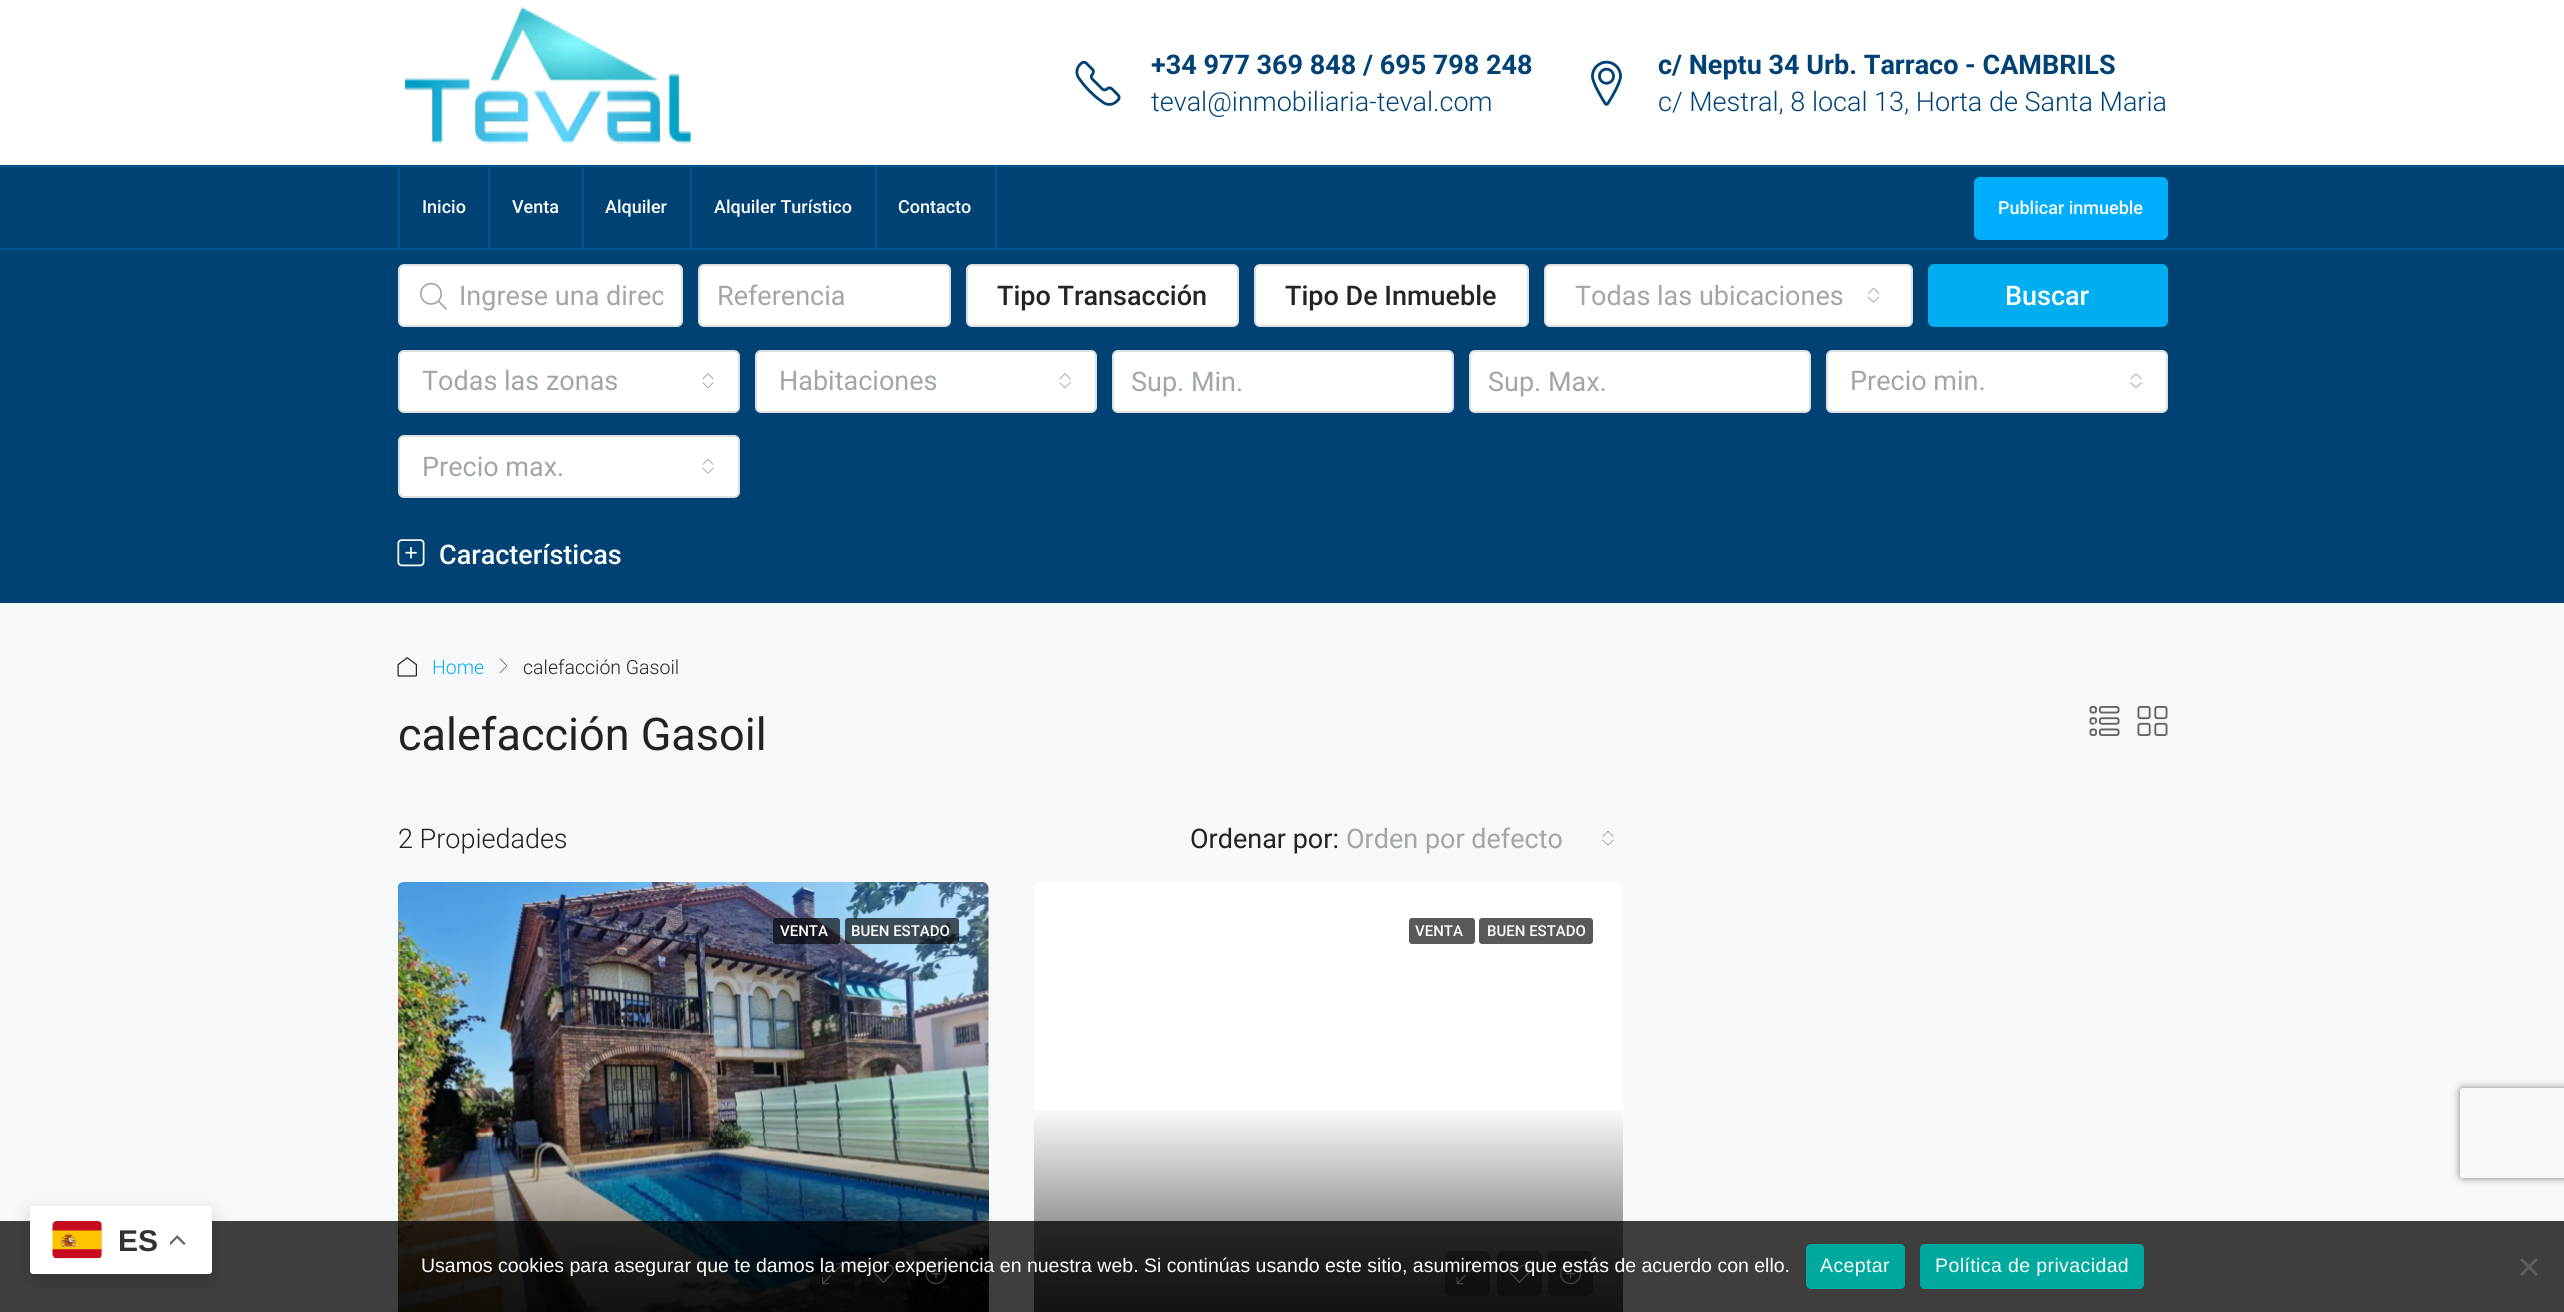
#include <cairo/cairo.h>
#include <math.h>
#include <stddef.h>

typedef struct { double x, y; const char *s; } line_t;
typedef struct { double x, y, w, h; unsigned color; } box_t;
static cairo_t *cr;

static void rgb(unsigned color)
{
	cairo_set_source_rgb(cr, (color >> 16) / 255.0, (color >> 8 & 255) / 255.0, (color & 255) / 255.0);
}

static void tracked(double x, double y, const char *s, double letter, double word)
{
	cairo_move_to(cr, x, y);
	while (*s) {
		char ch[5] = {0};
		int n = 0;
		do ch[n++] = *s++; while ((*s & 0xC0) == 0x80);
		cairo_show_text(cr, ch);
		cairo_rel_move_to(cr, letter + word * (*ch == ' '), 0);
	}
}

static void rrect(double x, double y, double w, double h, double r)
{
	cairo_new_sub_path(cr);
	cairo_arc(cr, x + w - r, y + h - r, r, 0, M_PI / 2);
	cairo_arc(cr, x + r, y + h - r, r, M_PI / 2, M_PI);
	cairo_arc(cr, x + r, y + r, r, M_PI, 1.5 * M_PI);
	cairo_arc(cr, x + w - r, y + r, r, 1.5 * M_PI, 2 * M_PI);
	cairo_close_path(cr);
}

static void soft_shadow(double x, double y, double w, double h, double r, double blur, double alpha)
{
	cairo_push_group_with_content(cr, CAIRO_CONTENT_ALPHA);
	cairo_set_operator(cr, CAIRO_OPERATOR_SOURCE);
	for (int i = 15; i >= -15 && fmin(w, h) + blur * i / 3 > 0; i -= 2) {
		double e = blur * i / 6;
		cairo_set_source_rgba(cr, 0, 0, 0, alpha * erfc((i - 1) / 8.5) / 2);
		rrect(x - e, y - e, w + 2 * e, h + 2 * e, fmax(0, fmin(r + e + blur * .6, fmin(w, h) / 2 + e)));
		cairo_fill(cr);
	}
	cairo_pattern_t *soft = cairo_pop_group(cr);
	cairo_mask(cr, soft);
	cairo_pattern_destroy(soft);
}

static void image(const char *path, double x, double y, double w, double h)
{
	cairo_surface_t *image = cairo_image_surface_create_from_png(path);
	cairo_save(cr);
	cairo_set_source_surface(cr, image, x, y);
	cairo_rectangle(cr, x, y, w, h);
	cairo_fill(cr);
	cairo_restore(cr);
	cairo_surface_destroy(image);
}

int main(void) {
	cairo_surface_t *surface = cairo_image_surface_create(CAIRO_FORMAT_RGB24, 2564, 1312);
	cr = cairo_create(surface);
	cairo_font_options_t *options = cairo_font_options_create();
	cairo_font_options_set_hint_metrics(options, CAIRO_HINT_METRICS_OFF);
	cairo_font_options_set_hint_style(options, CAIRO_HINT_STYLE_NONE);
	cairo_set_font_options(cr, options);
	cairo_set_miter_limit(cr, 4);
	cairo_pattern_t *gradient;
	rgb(0xf7f8f9);
	cairo_paint(cr);
	rgb(0xffffff);
	cairo_rectangle(cr, 0, 0, 2564, 165);
	cairo_fill(cr);
	image("img/1.png", 405, 6, 287, 138);
	image("img/2.png", 1075, 60, 46, 46);
	image("img/3.png", 1591, 60, 31, 46);
	{
		static const box_t items[] = {
			{0, 167, 2564, 81, 0x004274},
			{0, 165, 2564, 2, 0x005890},
			{0, 248, 2564, 2, 0x005890},
			{488, 167, 2, 81, 0x005890},
			{398, 167, 2, 81, 0x005890},
			{582, 167, 2, 81, 0x005890},
			{690, 167, 2, 81, 0x005890},
			{875, 167, 2, 81, 0x005890},
			{995, 167, 2, 81, 0x005890},
		};
		for (size_t i = 0; i < sizeof items / sizeof *items; i++) {
			rgb(items[i].color);
			cairo_rectangle(cr, items[i].x, items[i].y, items[i].w, items[i].h);
			cairo_fill(cr);
		}
	}
	rgb(0x00aeff);
	rrect(1975, 178, 192, 61, 5);
	cairo_fill_preserve(cr);
	cairo_stroke(cr);
	rgb(0x004274);
	cairo_rectangle(cr, 0, 250, 2564, 353);
	cairo_fill(cr);
	rgb(0xffffff);
	rrect(399, 265, 283, 61, 5);
	cairo_fill_preserve(cr);
	rgb(0xdce0e0);
	cairo_stroke(cr);
	image("img/4.png", 420, 282, 27, 28);
	rgb(0xffffff);
	rrect(699, 265, 251, 61, 5);
	cairo_fill_preserve(cr);
	rgb(0xdce0e0);
	cairo_stroke(cr);
	rgb(0xffffff);
	rrect(967, 265, 271, 61, 5);
	cairo_fill_preserve(cr);
	rgb(0xdce0e0);
	cairo_stroke(cr);
	rgb(0xffffff);
	rrect(1255, 265, 273, 61, 5);
	cairo_fill_preserve(cr);
	rgb(0xdce0e0);
	cairo_stroke(cr);
	rgb(0xffffff);
	rrect(1545, 265, 367, 61, 5);
	cairo_fill_preserve(cr);
	rgb(0xdce0e0);
	cairo_stroke(cr);
	image("img/5.png", 1867, 288, 13, 15);
	rgb(0x00aeef);
	rrect(1929, 265, 238, 61, 5);
	cairo_fill_preserve(cr);
	cairo_stroke(cr);
	rgb(0xffffff);
	rrect(399, 351, 340, 61, 5);
	cairo_fill_preserve(cr);
	rgb(0xdce0e0);
	cairo_stroke(cr);
	image("img/6.png", 702, 373, 12, 15);
	rgb(0xffffff);
	rrect(756, 351, 340, 61, 5);
	cairo_fill_preserve(cr);
	rgb(0xdce0e0);
	cairo_stroke(cr);
	image("img/6.png", 1059, 373, 12, 15);
	rgb(0xffffff);
	rrect(1113, 351, 340, 61, 5);
	cairo_fill_preserve(cr);
	rgb(0xdce0e0);
	cairo_stroke(cr);
	rgb(0xffffff);
	rrect(1470, 351, 340, 61, 5);
	cairo_fill_preserve(cr);
	rgb(0xdce0e0);
	cairo_stroke(cr);
	rgb(0xffffff);
	rrect(1827, 351, 340, 61, 5);
	cairo_fill_preserve(cr);
	rgb(0xdce0e0);
	cairo_stroke(cr);
	image("img/6.png", 2130, 373, 12, 15);
	rgb(0xffffff);
	rrect(399, 436, 340, 61, 5);
	cairo_fill_preserve(cr);
	rgb(0xdce0e0);
	cairo_stroke(cr);
	image("img/7.png", 702, 459, 12, 15);
	image("img/8.png", 397, 539, 28, 28);
	image("img/9.png", 397, 657, 20, 20);
	image("img/10.png", 499, 658, 9, 16);
	image("img/11.png", 2089, 706, 31, 30);
	image("img/12.png", 2137, 706, 31, 30);
	image("img/13.png", 1602, 831, 12, 15);
	rgb(0xffffff);
	rrect(398, 882, 591, 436, 6);
	cairo_fill(cr);
	image("img/14.png", 398, 882, 591, 430);
	gradient = cairo_pattern_create_linear(693, 882, 693, 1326);
	cairo_pattern_add_color_stop_rgba(gradient, 0, 0, 0, 0, 0);
	cairo_pattern_add_color_stop_rgba(gradient, 0.5, 0, 0, 0, 0);
	cairo_pattern_add_color_stop_rgba(gradient, 1, 0, 0, 0, 0.75);
	cairo_set_source(cr, gradient);
	cairo_pattern_destroy(gradient);
	cairo_rectangle(cr, 398, 1110, 591, 202);
	cairo_fill(cr);
	cairo_set_source_rgba(cr, 0, 0, 0, 0.65);
	rrect(773, 918, 67, 26, 3);
	cairo_fill(cr);
	rrect(845, 918, 114, 26, 3);
	cairo_fill(cr);
	cairo_set_source_rgba(cr, 0, 0, 0, 0.35);
	rrect(810, 1251, 45, 45, 6);
	cairo_fill(cr);
	image("img/15.png", 822, 1263, 21, 22);
	rrect(861, 1251, 45, 45, 6);
	cairo_fill(cr);
	image("img/16.png", 873, 1264, 21, 19);
	rrect(914, 1251, 45, 45, 6);
	cairo_fill(cr);
	image("img/17.png", 925, 1263, 22, 22);
	rgb(0xffffff);
	rrect(1034, 882, 589, 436, 6);
	cairo_fill(cr);
	rgb(0x595959);
	rrect(1409, 918, 66, 26, 3);
	cairo_fill(cr);
	rrect(1479, 918, 114, 26, 3);
	cairo_fill(cr);
	gradient = cairo_pattern_create_linear(1329, 882, 1329, 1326);
	cairo_pattern_add_color_stop_rgba(gradient, 0, 0, 0, 0, 0);
	cairo_pattern_add_color_stop_rgba(gradient, 0.5, 0, 0, 0, 0);
	cairo_pattern_add_color_stop_rgba(gradient, 1, 0, 0, 0, 0.75);
	cairo_set_source(cr, gradient);
	cairo_pattern_destroy(gradient);
	cairo_rectangle(cr, 1034, 1110, 589, 202);
	cairo_fill(cr);
	cairo_set_source_rgba(cr, 0, 0, 0, 0.35);
	rrect(1445, 1251, 45, 45, 6);
	cairo_fill(cr);
	image("img/18.png", 1456, 1263, 22, 22);
	rrect(1497, 1251, 45, 45, 6);
	cairo_fill(cr);
	image("img/19.png", 1509, 1264, 21, 19);
	rrect(1548, 1251, 45, 45, 6);
	cairo_fill(cr);
	image("img/20.png", 1560, 1263, 21, 22);
	cairo_save(cr);
	cairo_set_fill_rule(cr, CAIRO_FILL_RULE_EVEN_ODD);
	cairo_new_path(cr);
	cairo_move_to(cr, 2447, 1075);
	cairo_line_to(cr, 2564, 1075);
	cairo_line_to(cr, 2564, 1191);
	cairo_line_to(cr, 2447, 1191);
	cairo_close_path(cr);
	cairo_move_to(cr, 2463, 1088);
	cairo_line_to(cr, 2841, 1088);
	cairo_curve_to(cr, 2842.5, 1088, 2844, 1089.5, 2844, 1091);
	cairo_line_to(cr, 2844, 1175);
	cairo_curve_to(cr, 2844, 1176.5, 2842.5, 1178, 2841, 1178);
	cairo_line_to(cr, 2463, 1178);
	cairo_curve_to(cr, 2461.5, 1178, 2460, 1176.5, 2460, 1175);
	cairo_line_to(cr, 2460, 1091);
	cairo_curve_to(cr, 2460, 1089.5, 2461.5, 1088, 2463, 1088);
	cairo_close_path(cr);
	cairo_clip(cr);
	rgb(0x808080);
	soft_shadow(2460, 1088, 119, 90, 3, 4, 1);
	cairo_restore(cr);
	cairo_set_source_rgba(cr, 0, 0, 0, 0.75);
	cairo_rectangle(cr, 0, 1221, 2564, 91);
	cairo_fill(cr);
	rgb(0x000000);
	soft_shadow(30, 1214, 182, 67, 3, 11, 0.15);
	rgb(0xffffff);
	rrect(30, 1206, 182, 68, 3);
	cairo_fill(cr);
	image("img/21.png", 52, 1221, 51, 38);
	image("img/22.png", 170, 1235, 16, 10);
	rgb(0x00a99d);
	rrect(1806, 1244, 99, 45, 5);
	cairo_fill(cr);
	rrect(1920, 1244, 224, 45, 5);
	cairo_fill(cr);
	rgb(0x5f5f5f);
	cairo_new_path(cr);
	cairo_move_to(cr, 2536, 1258);
	cairo_line_to(cr, 2538, 1260);
	cairo_line_to(cr, 2522, 1276);
	cairo_line_to(cr, 2520, 1274);
	cairo_close_path(cr);
	cairo_fill(cr);
	cairo_new_path(cr);
	cairo_move_to(cr, 2520, 1260);
	cairo_line_to(cr, 2522, 1258);
	cairo_line_to(cr, 2538, 1274);
	cairo_line_to(cr, 2536, 1276);
	cairo_close_path(cr);
	cairo_fill(cr);
	cairo_select_font_face(cr, "Roboto", CAIRO_FONT_SLANT_NORMAL, CAIRO_FONT_WEIGHT_BOLD);
	cairo_set_font_size(cr, 27);
	rgb(0x004274);
	cairo_move_to(cr, 1151, 74);
	cairo_show_text(cr, "+34 977 369 848 / 695 798 248");
	cairo_select_font_face(cr, "Roboto Light", CAIRO_FONT_SLANT_NORMAL, CAIRO_FONT_WEIGHT_NORMAL);
	cairo_move_to(cr, 1151, 111);
	cairo_show_text(cr, "teval@inmobiliaria-teval.com");
	cairo_select_font_face(cr, "Roboto", CAIRO_FONT_SLANT_NORMAL, CAIRO_FONT_WEIGHT_BOLD);
	cairo_move_to(cr, 1658, 74);
	cairo_show_text(cr, "c/ Neptu 34 Urb. Tarraco - CAMBRILS");
	cairo_select_font_face(cr, "Roboto Light", CAIRO_FONT_SLANT_NORMAL, CAIRO_FONT_WEIGHT_NORMAL);
	cairo_move_to(cr, 1658, 111);
	cairo_show_text(cr, "c/ Mestral, 8 local 13, Horta de Santa Maria");
	cairo_select_font_face(cr, "Roboto Medium", CAIRO_FONT_SLANT_NORMAL, CAIRO_FONT_WEIGHT_NORMAL);
	cairo_set_font_size(cr, 18);
	rgb(0xffffff);
	{
		static const line_t items[] = {
			{422, 213, "Inicio"},
			{512, 213, "Venta"},
			{605, 213, "Alquiler"},
			{714, 213, "Alquiler Turístico"},
			{898, 213, "Contacto"},
			{1998, 214, "Publicar inmueble"},
		};
		for (size_t i = 0; i < sizeof items / sizeof *items; i++) {
			cairo_move_to(cr, items[i].x, items[i].y);
			cairo_show_text(cr, items[i].s);
		}
	}
	cairo_save(cr);
	cairo_rectangle(cr, 459, 281, 204, 31);
	cairo_clip(cr);
	cairo_select_font_face(cr, "Roboto", CAIRO_FONT_SLANT_NORMAL, CAIRO_FONT_WEIGHT_NORMAL);
	cairo_set_font_size(cr, 27);
	rgb(0xa1a7a8);
	cairo_move_to(cr, 459, 305);
	cairo_show_text(cr, "Ingrese una direc");
	cairo_restore(cr);
	cairo_select_font_face(cr, "Roboto", CAIRO_FONT_SLANT_NORMAL, CAIRO_FONT_WEIGHT_NORMAL);
	cairo_set_font_size(cr, 27);
	rgb(0xa1a7a8);
	cairo_move_to(cr, 717, 305);
	cairo_show_text(cr, "Referencia");
	cairo_select_font_face(cr, "Roboto Medium", CAIRO_FONT_SLANT_NORMAL, CAIRO_FONT_WEIGHT_NORMAL);
	rgb(0x212529);
	cairo_move_to(cr, 997, 305);
	cairo_show_text(cr, "Tipo Transacción");
	cairo_move_to(cr, 1285, 305);
	cairo_show_text(cr, "Tipo De Inmueble");
	cairo_select_font_face(cr, "Roboto", CAIRO_FONT_SLANT_NORMAL, CAIRO_FONT_WEIGHT_NORMAL);
	rgb(0xa1a7a8);
	cairo_move_to(cr, 1575, 305);
	cairo_show_text(cr, "Todas las ubicaciones");
	cairo_select_font_face(cr, "Roboto Medium", CAIRO_FONT_SLANT_NORMAL, CAIRO_FONT_WEIGHT_NORMAL);
	rgb(0xffffff);
	cairo_move_to(cr, 2005, 305);
	cairo_show_text(cr, "Buscar");
	cairo_select_font_face(cr, "Roboto", CAIRO_FONT_SLANT_NORMAL, CAIRO_FONT_WEIGHT_NORMAL);
	rgb(0xa1a7a8);
	{
		static const line_t items[] = {
			{422, 390, "Todas las zonas"},
			{779, 390, "Habitaciones"},
			{1131, 391, "Sup. Min."},
			{1488, 391, "Sup. Max."},
			{1850, 390, "Precio min."},
			{422, 476, "Precio max."},
		};
		for (size_t i = 0; i < sizeof items / sizeof *items; i++) {
			cairo_move_to(cr, items[i].x, items[i].y);
			cairo_show_text(cr, items[i].s);
		}
	}
	cairo_select_font_face(cr, "Roboto Medium", CAIRO_FONT_SLANT_NORMAL, CAIRO_FONT_WEIGHT_NORMAL);
	rgb(0xffffff);
	cairo_move_to(cr, 439, 564);
	cairo_show_text(cr, "Características");
	cairo_select_font_face(cr, "Roboto Light", CAIRO_FONT_SLANT_NORMAL, CAIRO_FONT_WEIGHT_NORMAL);
	cairo_set_font_size(cr, 19.5);
	rgb(0x00aeff);
	cairo_move_to(cr, 432, 674);
	cairo_show_text(cr, "Home");
	rgb(0x222222);
	cairo_move_to(cr, 523, 674);
	cairo_show_text(cr, "calefacción Gasoil");
	cairo_select_font_face(cr, "Roboto", CAIRO_FONT_SLANT_NORMAL, CAIRO_FONT_WEIGHT_NORMAL);
	cairo_set_font_size(cr, 45);
	cairo_move_to(cr, 398, 750);
	cairo_show_text(cr, "calefacción Gasoil");
	cairo_select_font_face(cr, "Roboto Light", CAIRO_FONT_SLANT_NORMAL, CAIRO_FONT_WEIGHT_NORMAL);
	cairo_set_font_size(cr, 27);
	cairo_move_to(cr, 398, 848);
	cairo_show_text(cr, "2 Propiedades");
	cairo_select_font_face(cr, "Roboto", CAIRO_FONT_SLANT_NORMAL, CAIRO_FONT_WEIGHT_NORMAL);
	cairo_move_to(cr, 1190, 848);
	cairo_show_text(cr, "Ordenar por:");
	rgb(0xa1a7a8);
	cairo_move_to(cr, 1346, 848);
	cairo_show_text(cr, "Orden por defecto");
	cairo_select_font_face(cr, "Roboto Medium", CAIRO_FONT_SLANT_NORMAL, CAIRO_FONT_WEIGHT_NORMAL);
	cairo_set_font_size(cr, 15);
	rgb(0xffffff);
	{
		static const line_t items[] = {
			{780, 936, "VENTA"},
			{851, 936, "BUEN ESTADO"},
			{1415, 936, "VENTA"},
			{1487, 936, "BUEN ESTADO"},
		};
		for (size_t i = 0; i < sizeof items / sizeof *items; i++) {
			cairo_move_to(cr, items[i].x, items[i].y);
			cairo_show_text(cr, items[i].s);
		}
	}
	cairo_select_font_face(cr, "Liberation Sans", CAIRO_FONT_SLANT_NORMAL, CAIRO_FONT_WEIGHT_BOLD);
	cairo_set_font_size(cr, 30);
	rgb(0x333333);
	cairo_move_to(cr, 118, 1251);
	cairo_show_text(cr, "ES");
	cairo_select_font_face(cr, "Liberation Sans", CAIRO_FONT_SLANT_NORMAL, CAIRO_FONT_WEIGHT_NORMAL);
	cairo_set_font_size(cr, 19.5);
	rgb(0xffffff);
	cairo_move_to(cr, 421, 1272);
	cairo_show_text(cr, "Usamos cookies para asegurar que te damos la mejor experiencia en nuestra web. Si continúas usando este sitio, asumiremos que estás de acuerdo con ello.");
	tracked(1820, 1272, "Aceptar", 0.4, 0);
	tracked(1935, 1272, "Política de privacidad", 0.4, 0);
	cairo_surface_write_to_png(surface, "page.png");
	cairo_font_options_destroy(options);
	cairo_destroy(cr);
	cairo_surface_destroy(surface);
	return 0;
}
